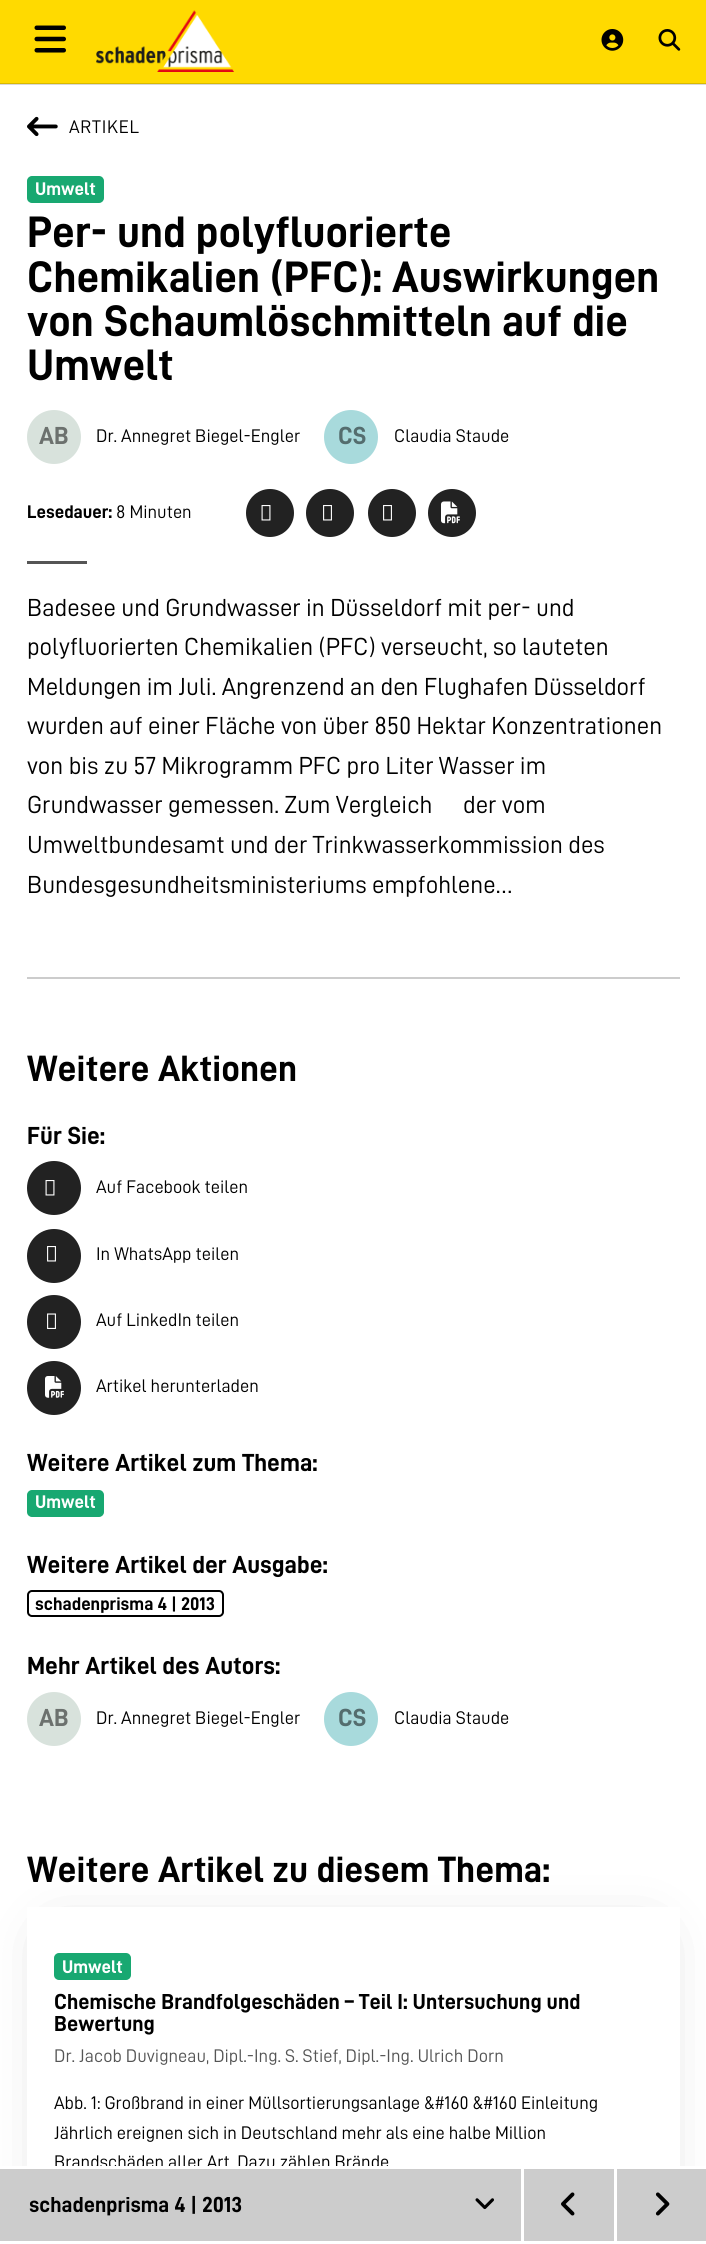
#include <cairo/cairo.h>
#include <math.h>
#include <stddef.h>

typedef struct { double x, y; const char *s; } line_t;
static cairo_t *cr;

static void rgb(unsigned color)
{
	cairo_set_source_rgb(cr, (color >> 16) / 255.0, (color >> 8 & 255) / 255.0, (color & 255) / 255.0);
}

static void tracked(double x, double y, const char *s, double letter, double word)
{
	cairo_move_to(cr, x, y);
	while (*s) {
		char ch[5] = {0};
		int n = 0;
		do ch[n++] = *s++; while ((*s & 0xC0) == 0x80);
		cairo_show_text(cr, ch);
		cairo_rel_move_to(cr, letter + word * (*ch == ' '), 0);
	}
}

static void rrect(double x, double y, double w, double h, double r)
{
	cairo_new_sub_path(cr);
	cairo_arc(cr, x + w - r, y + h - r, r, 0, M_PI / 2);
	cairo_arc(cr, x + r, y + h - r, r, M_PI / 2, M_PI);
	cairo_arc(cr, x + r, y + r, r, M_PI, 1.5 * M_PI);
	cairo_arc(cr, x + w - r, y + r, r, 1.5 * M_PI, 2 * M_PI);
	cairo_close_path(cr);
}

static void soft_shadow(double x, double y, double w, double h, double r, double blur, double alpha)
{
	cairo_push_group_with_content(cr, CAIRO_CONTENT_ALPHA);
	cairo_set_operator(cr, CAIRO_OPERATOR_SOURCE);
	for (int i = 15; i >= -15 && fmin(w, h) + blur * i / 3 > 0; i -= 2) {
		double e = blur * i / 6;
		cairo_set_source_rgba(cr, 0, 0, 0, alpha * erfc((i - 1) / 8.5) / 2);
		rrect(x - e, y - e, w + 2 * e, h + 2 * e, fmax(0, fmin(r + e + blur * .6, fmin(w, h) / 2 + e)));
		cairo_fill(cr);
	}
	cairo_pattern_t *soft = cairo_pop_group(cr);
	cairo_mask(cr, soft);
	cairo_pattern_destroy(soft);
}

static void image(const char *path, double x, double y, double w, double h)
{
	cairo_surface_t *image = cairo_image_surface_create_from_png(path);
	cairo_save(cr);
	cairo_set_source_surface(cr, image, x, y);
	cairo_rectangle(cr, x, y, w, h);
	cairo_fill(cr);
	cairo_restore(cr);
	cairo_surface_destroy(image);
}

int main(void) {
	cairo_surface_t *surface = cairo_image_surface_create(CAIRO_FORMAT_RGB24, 706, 2244);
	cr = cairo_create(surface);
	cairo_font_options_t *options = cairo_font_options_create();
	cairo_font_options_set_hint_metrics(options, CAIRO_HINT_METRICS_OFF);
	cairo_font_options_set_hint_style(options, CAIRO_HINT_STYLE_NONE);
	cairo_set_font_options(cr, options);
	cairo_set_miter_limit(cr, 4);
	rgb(0xffda00);
	cairo_paint(cr);
	rgb(0xd9b900);
	cairo_rectangle(cr, 0, 83, 706, 1);
	cairo_fill(cr);
	image("img/1.png", 34, 25, 32, 28);
	image("img/2.png", 96, 10, 138, 62);
	image("img/3.png", 601, 29, 23, 22);
	image("img/4.png", 658, 29, 23, 22);
	rgb(0xffffff);
	cairo_rectangle(cr, 0, 85, 706, 2081);
	cairo_fill(cr);
	rgb(0xd9d9d9);
	cairo_rectangle(cr, 0, 84, 706, 1);
	cairo_fill(cr);
	image("img/5.png", 27, 116, 31, 21);
	rgb(0x18a871);
	rrect(28, 177, 75, 25, 4);
	cairo_fill_preserve(cr);
	cairo_stroke(cr);
	rgb(0xd8e2dc);
	cairo_arc(cr, 54, 437, 27, 0, 2 * M_PI);
	cairo_fill(cr);
	rgb(0xa8dadc);
	cairo_arc(cr, 351, 437, 27, 0, 2 * M_PI);
	cairo_fill(cr);
	rgb(0x222222);
	cairo_arc(cr, 270, 513, 24, 0, 2 * M_PI);
	cairo_fill(cr);
	image("img/6.png", 261, 505, 10, 16);
	cairo_arc(cr, 330, 513, 24, 0, 2 * M_PI);
	cairo_fill(cr);
	image("img/7.png", 323, 505, 9, 16);
	cairo_arc(cr, 392, 513, 24, 0, 2 * M_PI);
	cairo_fill(cr);
	image("img/7.png", 383, 505, 9, 16);
	cairo_arc(cr, 452, 513, 24, 0, 2 * M_PI);
	cairo_fill(cr);
	image("img/8.png", 441, 501, 19, 23);
	rgb(0x555555);
	cairo_rectangle(cr, 27, 561, 60, 3);
	cairo_fill(cr);
	rgb(0xcccccc);
	cairo_rectangle(cr, 27, 977, 653, 2);
	cairo_fill(cr);
	rgb(0x222222);
	cairo_arc(cr, 54, 1188, 27, 0, 2 * M_PI);
	cairo_fill(cr);
	image("img/6.png", 45, 1180, 10, 16);
	cairo_arc(cr, 54, 1256, 27, 0, 2 * M_PI);
	cairo_fill(cr);
	image("img/7.png", 47, 1246, 9, 16);
	cairo_arc(cr, 54, 1322, 27, 0, 2 * M_PI);
	cairo_fill(cr);
	image("img/9.png", 47, 1313, 9, 16);
	cairo_arc(cr, 54, 1388, 27, 0, 2 * M_PI);
	cairo_fill(cr);
	image("img/10.png", 45, 1376, 19, 22);
	rgb(0x18a871);
	rrect(28, 1491, 75, 25, 4);
	cairo_fill_preserve(cr);
	cairo_stroke(cr);
	rrect(28, 1591, 195, 25, 4);
	rgb(0x000000);
	cairo_stroke(cr);
	rgb(0xd8e2dc);
	cairo_arc(cr, 54, 1719, 27, 0, 2 * M_PI);
	cairo_fill(cr);
	rgb(0xa8dadc);
	cairo_arc(cr, 351, 1719, 27, 0, 2 * M_PI);
	cairo_fill(cr);
	rgb(0x000000);
	soft_shadow(57, 1940, 593, 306, 0, 30, 0.24);
	rgb(0xffffff);
	cairo_rectangle(cr, 27, 1907, 653, 259);
	cairo_fill(cr);
	rgb(0x18a871);
	rrect(55, 1954, 75, 25, 4);
	cairo_fill_preserve(cr);
	cairo_stroke(cr);
	cairo_select_font_face(cr, "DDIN", CAIRO_FONT_SLANT_NORMAL, CAIRO_FONT_WEIGHT_NORMAL);
	cairo_set_font_size(cr, 18.35);
	rgb(0x000000);
	tracked(69, 133, "ARTIKEL", 0.75, 0);
	cairo_select_font_face(cr, "DDIN", CAIRO_FONT_SLANT_NORMAL, CAIRO_FONT_WEIGHT_BOLD);
	rgb(0xffffff);
	cairo_move_to(cr, 35, 195);
	cairo_show_text(cr, "Umwelt");
	cairo_set_font_size(cr, 44.2);
	rgb(0x000000);
	{
		static const line_t items[] = {
			{27, 247, "Per- und polyfluorierte"},
			{27, 292, "Chemikalien (PFC): Auswirkungen"},
			{27, 336, "von Schaumlöschmitteln auf die"},
			{27, 380, "Umwelt"},
		};
		for (size_t i = 0; i < sizeof items / sizeof *items; i++) {
			cairo_move_to(cr, items[i].x, items[i].y);
			cairo_show_text(cr, items[i].s);
		}
	}
	cairo_set_font_size(cr, 24.75);
	rgb(0x6c716e);
	cairo_move_to(cr, 39, 444);
	cairo_show_text(cr, "AB");
	cairo_select_font_face(cr, "DDIN", CAIRO_FONT_SLANT_NORMAL, CAIRO_FONT_WEIGHT_NORMAL);
	cairo_set_font_size(cr, 18.35);
	rgb(0x000000);
	cairo_move_to(cr, 96, 442);
	cairo_show_text(cr, "Dr. Annegret Biegel-Engler");
	cairo_select_font_face(cr, "DDIN", CAIRO_FONT_SLANT_NORMAL, CAIRO_FONT_WEIGHT_BOLD);
	cairo_set_font_size(cr, 24.75);
	rgb(0x546d6e);
	cairo_move_to(cr, 338, 444);
	cairo_show_text(cr, "CS");
	cairo_select_font_face(cr, "DDIN", CAIRO_FONT_SLANT_NORMAL, CAIRO_FONT_WEIGHT_NORMAL);
	cairo_set_font_size(cr, 18.35);
	rgb(0x000000);
	cairo_move_to(cr, 394, 442);
	cairo_show_text(cr, "Claudia Staude");
	cairo_select_font_face(cr, "DDIN", CAIRO_FONT_SLANT_NORMAL, CAIRO_FONT_WEIGHT_BOLD);
	cairo_move_to(cr, 27, 518);
	cairo_show_text(cr, "Lesedauer:");
	cairo_select_font_face(cr, "DDIN", CAIRO_FONT_SLANT_NORMAL, CAIRO_FONT_WEIGHT_NORMAL);
	cairo_move_to(cr, 116, 518);
	cairo_show_text(cr, "8 Minuten");
	cairo_set_font_size(cr, 24.75);
	{
		static const line_t items[] = {
			{27, 616, "Badesee und Grundwasser in Düsseldorf mit per- und"},
			{27, 655, "polyfluorierten Chemikalien (PFC) verseucht, so lauteten"},
			{27, 695, "Meldungen im Juli. Angrenzend an den Flughafen Düsseldorf"},
			{27, 734, "wurden auf einer Fläche von über 850 Hektar Konzentrationen"},
			{27, 774, "von bis zu 57 Mikrogramm PFC pro Liter Wasser im"},
			{27, 813, "Grundwasser gemessen. Zum Vergleich"},
			{463, 813, "der vom"},
			{27, 853, "Umweltbundesamt und der Trinkwasserkommission des"},
			{27, 893, "Bundesgesundheitsministeriums empfohlene…"},
		};
		for (size_t i = 0; i < sizeof items / sizeof *items; i++) {
			cairo_move_to(cr, items[i].x, items[i].y);
			cairo_show_text(cr, items[i].s);
		}
	}
	cairo_select_font_face(cr, "DDIN", CAIRO_FONT_SLANT_NORMAL, CAIRO_FONT_WEIGHT_BOLD);
	cairo_set_font_size(cr, 36.75);
	cairo_move_to(cr, 27, 1081);
	cairo_show_text(cr, "Weitere Aktionen");
	cairo_set_font_size(cr, 24.75);
	cairo_move_to(cr, 27, 1144);
	cairo_show_text(cr, "Für Sie:");
	cairo_select_font_face(cr, "DDIN", CAIRO_FONT_SLANT_NORMAL, CAIRO_FONT_WEIGHT_NORMAL);
	cairo_set_font_size(cr, 18.35);
	{
		static const line_t items[] = {
			{96, 1193, "Auf Facebook teilen"},
			{96, 1260, "In WhatsApp teilen"},
			{96, 1326, "Auf LinkedIn teilen"},
			{96, 1392, "Artikel herunterladen"},
		};
		for (size_t i = 0; i < sizeof items / sizeof *items; i++) {
			cairo_move_to(cr, items[i].x, items[i].y);
			cairo_show_text(cr, items[i].s);
		}
	}
	cairo_select_font_face(cr, "DDIN", CAIRO_FONT_SLANT_NORMAL, CAIRO_FONT_WEIGHT_BOLD);
	cairo_set_font_size(cr, 24.75);
	cairo_move_to(cr, 27, 1471);
	cairo_show_text(cr, "Weitere Artikel zum Thema:");
	cairo_set_font_size(cr, 18.35);
	rgb(0xffffff);
	cairo_move_to(cr, 35, 1508);
	cairo_show_text(cr, "Umwelt");
	cairo_set_font_size(cr, 24.75);
	rgb(0x000000);
	cairo_move_to(cr, 27, 1573);
	cairo_show_text(cr, "Weitere Artikel der Ausgabe:");
	cairo_set_font_size(cr, 18.35);
	cairo_move_to(cr, 35, 1610);
	cairo_show_text(cr, "schadenprisma 4 | 2013");
	cairo_set_font_size(cr, 24.75);
	cairo_move_to(cr, 27, 1674);
	cairo_show_text(cr, "Mehr Artikel des Autors:");
	rgb(0x6c716e);
	cairo_move_to(cr, 39, 1726);
	cairo_show_text(cr, "AB");
	cairo_select_font_face(cr, "DDIN", CAIRO_FONT_SLANT_NORMAL, CAIRO_FONT_WEIGHT_NORMAL);
	cairo_set_font_size(cr, 18.35);
	rgb(0x000000);
	cairo_move_to(cr, 96, 1724);
	cairo_show_text(cr, "Dr. Annegret Biegel-Engler");
	cairo_select_font_face(cr, "DDIN", CAIRO_FONT_SLANT_NORMAL, CAIRO_FONT_WEIGHT_BOLD);
	cairo_set_font_size(cr, 24.75);
	rgb(0x546d6e);
	cairo_move_to(cr, 338, 1726);
	cairo_show_text(cr, "CS");
	cairo_select_font_face(cr, "DDIN", CAIRO_FONT_SLANT_NORMAL, CAIRO_FONT_WEIGHT_NORMAL);
	cairo_set_font_size(cr, 18.35);
	rgb(0x000000);
	cairo_move_to(cr, 394, 1724);
	cairo_show_text(cr, "Claudia Staude");
	cairo_select_font_face(cr, "DDIN", CAIRO_FONT_SLANT_NORMAL, CAIRO_FONT_WEIGHT_BOLD);
	cairo_set_font_size(cr, 36.75);
	cairo_move_to(cr, 27, 1882);
	cairo_show_text(cr, "Weitere Artikel zu diesem Thema:");
	cairo_set_font_size(cr, 18.35);
	rgb(0xffffff);
	cairo_move_to(cr, 62, 1973);
	cairo_show_text(cr, "Umwelt");
	cairo_set_font_size(cr, 21.75);
	rgb(0x000000);
	cairo_move_to(cr, 54, 2009);
	cairo_show_text(cr, "Chemische Brandfolgeschäden – Teil I: Untersuchung und");
	cairo_move_to(cr, 54, 2031);
	cairo_show_text(cr, "Bewertung");
	cairo_select_font_face(cr, "DDIN", CAIRO_FONT_SLANT_NORMAL, CAIRO_FONT_WEIGHT_NORMAL);
	cairo_set_font_size(cr, 18.35);
	rgb(0x555555);
	cairo_move_to(cr, 54, 2062);
	cairo_show_text(cr, "Dr. Jacob Duvigneau, Dipl.-Ing. S. Stief, Dipl.-Ing. Ulrich Dorn");
	rgb(0x000000);
	{
		static const line_t items[] = {
			{54, 2109, "Abb. 1: Großbrand in einer Müllsortierungsanlage &#160 &#160 Einleitung"},
			{54, 2139, "Jährlich ereignen sich in Deutschland mehr als eine halbe Million"},
			{54, 2168, "Brandschäden aller Art. Dazu zählen Brände"},
		};
		for (size_t i = 0; i < sizeof items / sizeof *items; i++) {
			cairo_move_to(cr, items[i].x, items[i].y);
			cairo_show_text(cr, items[i].s);
		}
	}
	rgb(0xffffff);
	cairo_rectangle(cr, 0, 2166, 706, 78);
	cairo_fill(cr);
	rgb(0xcccccc);
	cairo_rectangle(cr, 0, 2169, 521, 72);
	cairo_fill(cr);
	cairo_select_font_face(cr, "DDIN", CAIRO_FONT_SLANT_NORMAL, CAIRO_FONT_WEIGHT_BOLD);
	cairo_set_font_size(cr, 21.75);
	rgb(0x000000);
	cairo_move_to(cr, 29, 2212);
	cairo_show_text(cr, "schadenprisma 4 | 2013");
	image("img/11.png", 475, 2198, 19, 12);
	rgb(0xcccccc);
	cairo_rectangle(cr, 524, 2169, 90, 72);
	cairo_fill(cr);
	image("img/12.png", 561, 2192, 14, 24);
	cairo_rectangle(cr, 617, 2169, 89, 72);
	cairo_fill(cr);
	image("img/13.png", 655, 2192, 15, 24);
	cairo_surface_write_to_png(surface, "page.png");
	cairo_font_options_destroy(options);
	cairo_destroy(cr);
	cairo_surface_destroy(surface);
	return 0;
}
